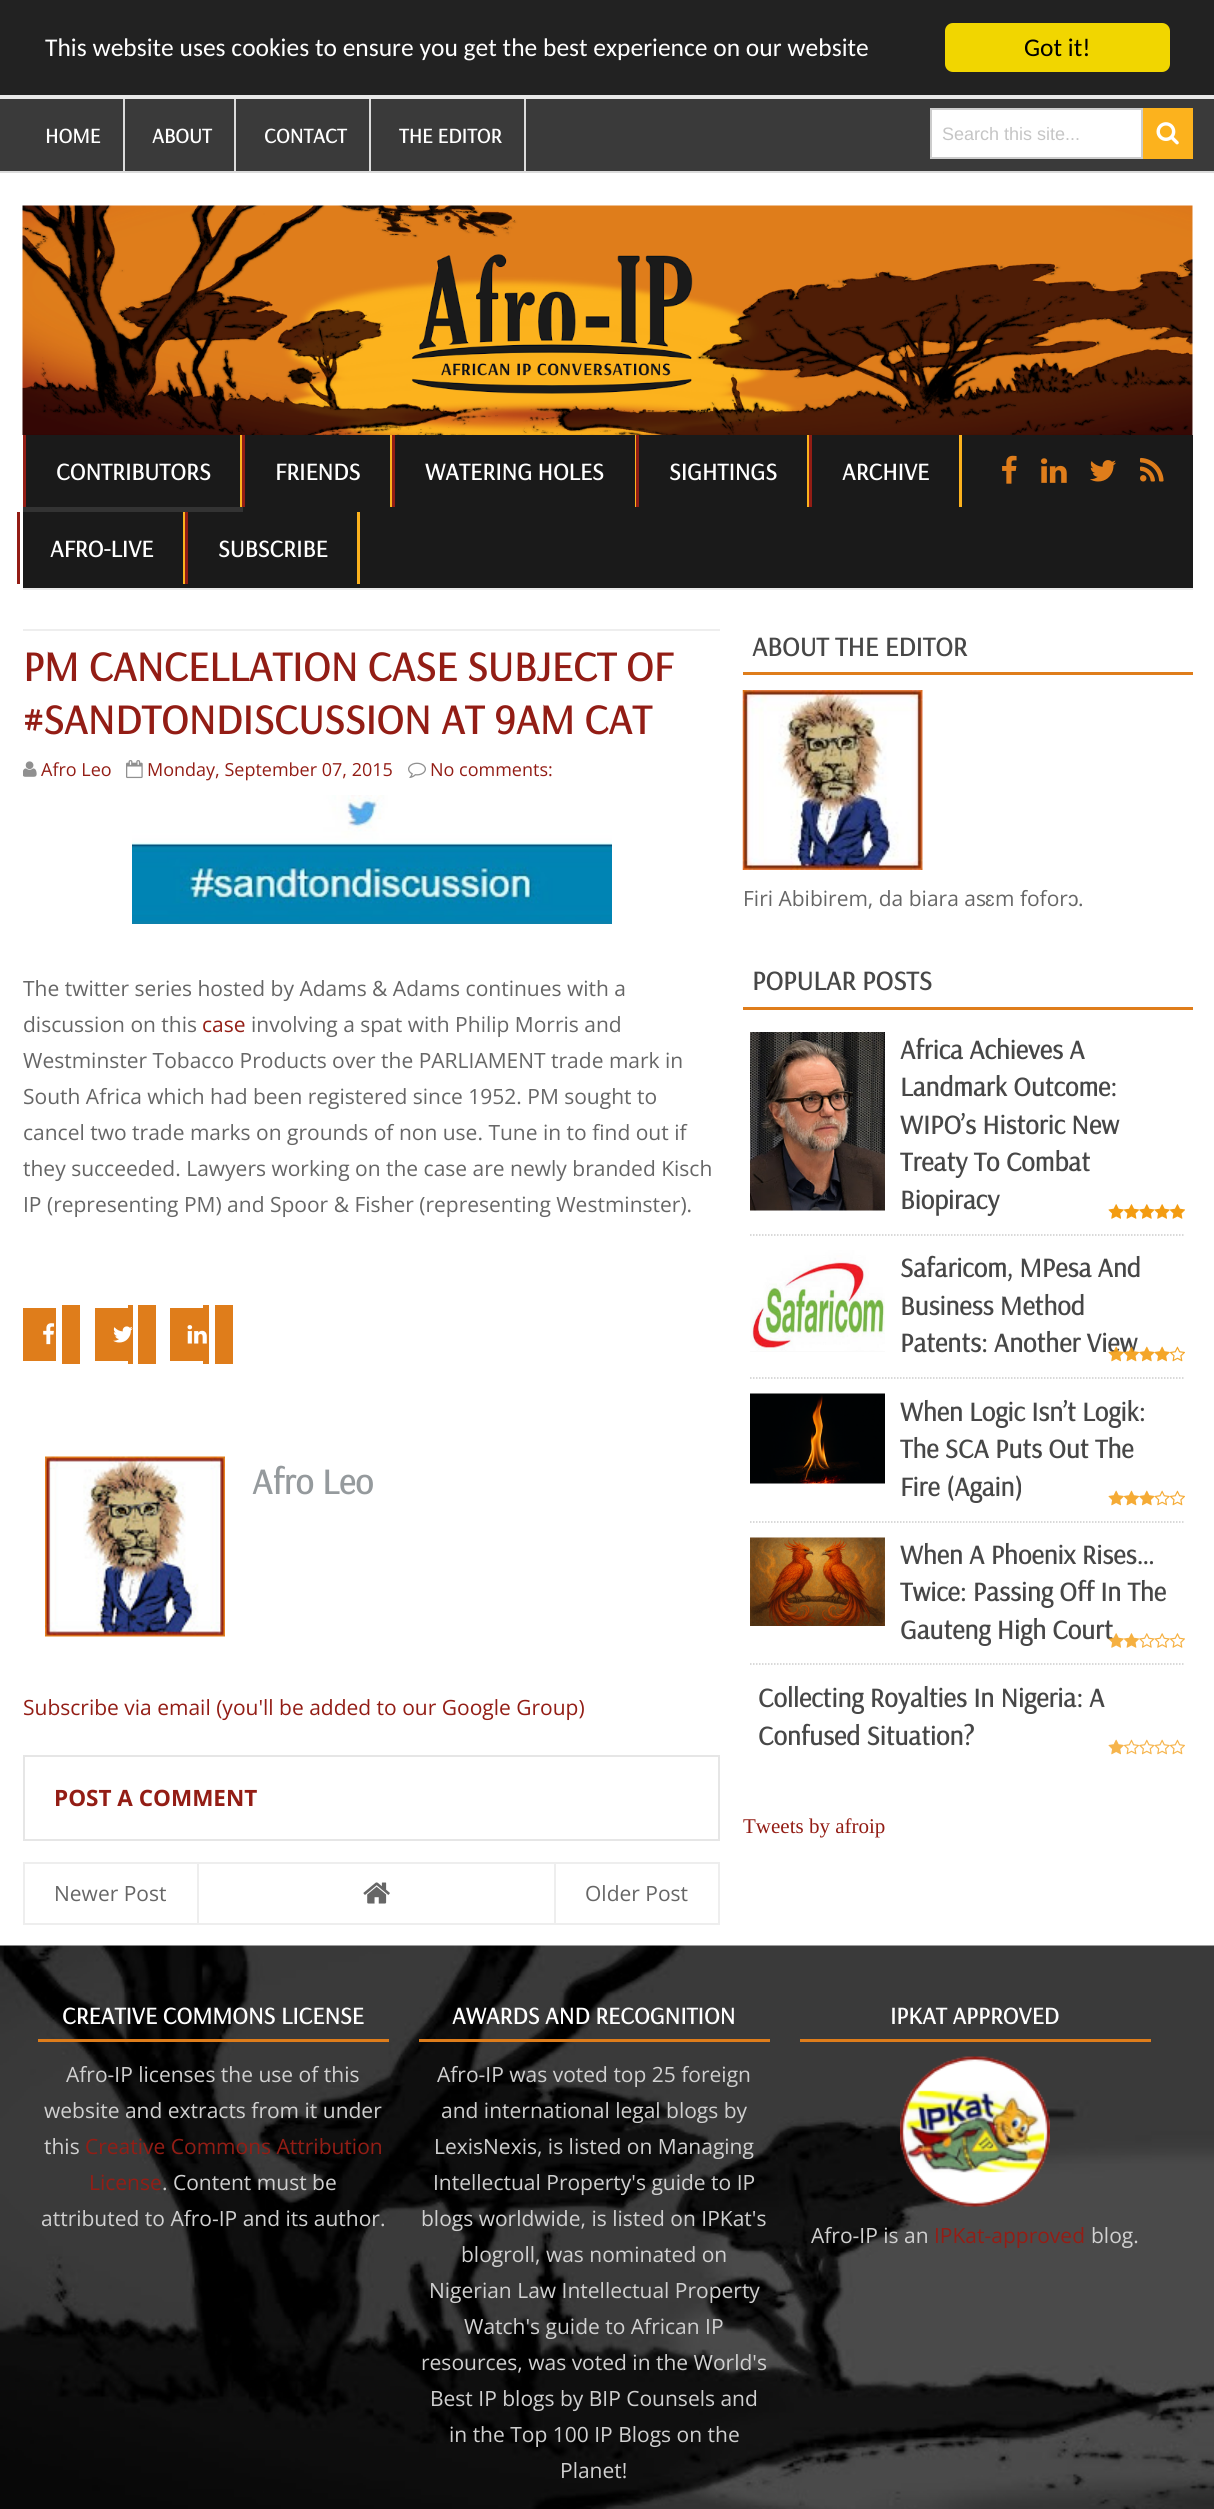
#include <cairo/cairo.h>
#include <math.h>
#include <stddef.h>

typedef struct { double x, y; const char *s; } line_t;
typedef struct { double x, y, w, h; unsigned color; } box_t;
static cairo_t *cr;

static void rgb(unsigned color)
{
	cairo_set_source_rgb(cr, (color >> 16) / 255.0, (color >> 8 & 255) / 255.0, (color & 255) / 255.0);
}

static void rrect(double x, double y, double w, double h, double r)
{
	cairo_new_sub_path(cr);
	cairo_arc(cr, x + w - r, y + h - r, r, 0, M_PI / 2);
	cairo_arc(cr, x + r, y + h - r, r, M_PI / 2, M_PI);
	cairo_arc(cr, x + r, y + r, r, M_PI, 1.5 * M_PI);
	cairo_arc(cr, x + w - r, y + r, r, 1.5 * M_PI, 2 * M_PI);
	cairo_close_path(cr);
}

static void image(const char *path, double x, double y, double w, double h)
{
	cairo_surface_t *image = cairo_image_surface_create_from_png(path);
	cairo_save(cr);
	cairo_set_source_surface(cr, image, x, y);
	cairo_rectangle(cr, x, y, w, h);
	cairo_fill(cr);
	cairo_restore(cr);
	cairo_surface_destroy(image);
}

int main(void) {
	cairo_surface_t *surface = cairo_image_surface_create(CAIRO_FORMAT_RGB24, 1214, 2509);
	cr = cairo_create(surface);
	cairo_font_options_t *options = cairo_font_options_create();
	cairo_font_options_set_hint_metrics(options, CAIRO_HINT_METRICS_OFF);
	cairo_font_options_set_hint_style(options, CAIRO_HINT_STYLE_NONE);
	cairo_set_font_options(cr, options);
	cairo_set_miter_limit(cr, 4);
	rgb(0xe9e9e9);
	cairo_paint(cr);
	rgb(0x222222);
	cairo_rectangle(cr, 0, 0, 1214, 95);
	cairo_fill(cr);
	rgb(0xf1d600);
	rrect(945, 23, 225, 49, 8);
	cairo_fill(cr);
	{
		static const box_t items[] = {
			{0, 173, 1214, 1773, 0xffffff},
			{0, 99, 1214, 72, 0x3a3a3a},
			{0, 171, 1214, 2, 0xdbdbdb},
			{123, 99, 2, 72, 0xdbdbdb},
			{234, 99, 2, 72, 0xdbdbdb},
			{369, 99, 2, 72, 0xdbdbdb},
			{524, 99, 2, 72, 0xdbdbdb},
		};
		for (size_t i = 0; i < sizeof items / sizeof *items; i++) {
			rgb(items[i].color);
			cairo_rectangle(cr, items[i].x, items[i].y, items[i].w, items[i].h);
			cairo_fill(cr);
		}
	}
	rgb(0xffffff);
	cairo_rectangle(cr, 931, 109, 211, 49);
	cairo_fill_preserve(cr);
	rgb(0xcccccc);
	cairo_stroke(cr);
	rgb(0xfcb21d);
	cairo_rectangle(cr, 1143, 108, 50, 51);
	cairo_fill(cr);
	image("img/1.png", 1156, 122, 23, 23);
	image("img/2.png", 22, 205, 1171, 230);
	{
		static const box_t items[] = {
			{23, 435, 1170, 153, 0x1a1a1a},
			{23, 588, 1170, 2, 0xeaeaea},
			{240, 435, 2, 72, 0xfcb21d},
			{23, 435, 3, 72, 0x931d15},
			{23, 507, 220, 5, 0x333333},
			{390, 435, 2, 72, 0xfcb21d},
			{242, 435, 3, 72, 0x931d15},
			{635, 435, 1, 72, 0xfcb21d},
			{392, 435, 3, 72, 0x931d15},
			{807, 435, 2, 72, 0xfcb21d},
			{636, 435, 3, 72, 0x931d15},
			{959, 435, 3, 72, 0xfcb21d},
			{809, 435, 3, 72, 0x931d15},
			{183, 512, 2, 72, 0xfcb21d},
			{17, 512, 3, 72, 0x931d15},
			{357, 512, 3, 72, 0xfcb21d},
			{185, 512, 3, 72, 0x931d15},
		};
		for (size_t i = 0; i < sizeof items / sizeof *items; i++) {
			rgb(items[i].color);
			cairo_rectangle(cr, items[i].x, items[i].y, items[i].w, items[i].h);
			cairo_fill(cr);
		}
	}
	image("img/3.png", 1002, 455, 15, 29);
	image("img/4.png", 1041, 458, 26, 25);
	image("img/5.png", 1090, 460, 26, 22);
	image("img/6.png", 1140, 457, 24, 25);
	rgb(0xeeeeee);
	cairo_rectangle(cr, 23, 629, 697, 2);
	cairo_fill(cr);
	image("img/7.png", 23, 761, 14, 16);
	image("img/8.png", 126, 760, 17, 19);
	image("img/9.png", 408, 762, 18, 16);
	image("img/10.png", 132, 795, 480, 129);
	rgb(0xdf7d1b);
	cairo_rectangle(cr, 23, 1308, 33, 53);
	cairo_fill(cr);
	cairo_rectangle(cr, 62, 1305, 18, 59);
	cairo_fill(cr);
	image("img/11.png", 43, 1323, 12, 22);
	{
		static const box_t items[] = {
			{95, 1308, 33, 53, 0xdf7d1b},
			{128, 1305, 5, 59, 0xdf7d1b},
			{138, 1305, 18, 59, 0xdf7d1b},
		};
		for (size_t i = 0; i < sizeof items / sizeof *items; i++) {
			rgb(items[i].color);
			cairo_rectangle(cr, items[i].x, items[i].y, items[i].w, items[i].h);
			cairo_fill(cr);
		}
	}
	image("img/12.png", 113, 1326, 20, 17);
	{
		static const box_t items[] = {
			{170, 1308, 33, 53, 0xdf7d1b},
			{203, 1305, 6, 59, 0xdf7d1b},
			{215, 1305, 18, 59, 0xdf7d1b},
		};
		for (size_t i = 0; i < sizeof items / sizeof *items; i++) {
			rgb(items[i].color);
			cairo_rectangle(cr, items[i].x, items[i].y, items[i].w, items[i].h);
			cairo_fill(cr);
		}
	}
	image("img/13.png", 187, 1325, 20, 19);
	image("img/14.png", 45, 1456, 180, 181);
	cairo_rectangle(cr, 24, 1756, 695, 84);
	rgb(0xe6e6e6);
	cairo_stroke(cr);
	cairo_rectangle(cr, 24, 1863, 695, 61);
	rgb(0xeeeeee);
	cairo_stroke(cr);
	cairo_rectangle(cr, 197, 1863, 2, 60);
	cairo_fill(cr);
	image("img/15.png", 363, 1882, 27, 22);
	cairo_rectangle(cr, 554, 1863, 2, 60);
	cairo_fill(cr);
	rgb(0xdf7d1b);
	cairo_rectangle(cr, 743, 672, 450, 3);
	cairo_fill(cr);
	image("img/16.png", 742, 690, 181, 180);
	cairo_rectangle(cr, 743, 1007, 450, 3);
	cairo_fill(cr);
	cairo_new_path(cr);
	cairo_move_to(cr, 750, 1235);
	cairo_line_to(cr, 1185, 1235);
	rgb(0xcccccc);
	cairo_set_line_width(cr, 1.5);
	cairo_set_dash(cr, (double[]){1.5, 1.5}, 2, 0);
	cairo_stroke(cr);
	rgb(0xfafafa);
	cairo_rectangle(cr, 750, 1210, 135, 1);
	cairo_fill(cr);
	image("img/17.png", 750, 1032, 135, 179);
	image("img/18.png", 1108, 1204, 78, 15);
	cairo_new_path(cr);
	cairo_move_to(cr, 750, 1378);
	cairo_line_to(cr, 1185, 1378);
	rgb(0xcccccc);
	cairo_stroke(cr);
	rgb(0xfafafa);
	cairo_rectangle(cr, 750, 1351, 135, 1);
	cairo_fill(cr);
	image("img/19.png", 750, 1250, 135, 101);
	cairo_new_path(cr);
	cairo_move_to(cr, 750, 1522);
	cairo_line_to(cr, 1185, 1522);
	rgb(0xcccccc);
	cairo_stroke(cr);
	rgb(0xfafafa);
	cairo_rectangle(cr, 750, 1483, 135, 1);
	cairo_fill(cr);
	image("img/21.png", 750, 1393, 135, 91);
	image("img/22.png", 1108, 1490, 77, 16);
	cairo_new_path(cr);
	cairo_move_to(cr, 750, 1664);
	cairo_line_to(cr, 1185, 1664);
	rgb(0xcccccc);
	cairo_stroke(cr);
	image("img/23.png", 750, 1537, 135, 89);
	image("img/25.png", 1108, 1739, 77, 16);
	image("img/26.png", 0, 1945, 1214, 564);
	{
		static const box_t items[] = {
			{38, 2039, 351, 3, 0xdf7d1b},
			{419, 2039, 351, 3, 0xdf7d1b},
			{800, 2039, 351, 3, 0xdf7d1b},
		};
		for (size_t i = 0; i < sizeof items / sizeof *items; i++) {
			rgb(items[i].color);
			cairo_rectangle(cr, items[i].x, items[i].y, items[i].w, items[i].h);
			cairo_fill(cr);
		}
	}
	image("img/27.png", 900, 2056, 150, 151);
	cairo_select_font_face(cr, "Carlito", CAIRO_FONT_SLANT_NORMAL, CAIRO_FONT_WEIGHT_NORMAL);
	cairo_set_font_size(cr, 25.5);
	rgb(0xffffff);
	cairo_move_to(cr, 45, 56);
	cairo_show_text(cr, "This website uses cookies to ensure you get the best experience on our website");
	rgb(0x000000);
	cairo_move_to(cr, 1024, 56);
	cairo_show_text(cr, "Got it!");
	cairo_select_font_face(cr, "Arsenal", CAIRO_FONT_SLANT_NORMAL, CAIRO_FONT_WEIGHT_BOLD);
	cairo_set_font_size(cr, 21);
	rgb(0xffffff);
	{
		static const line_t items[] = {
			{45, 143, "HOME"},
			{152, 143, "ABOUT"},
			{264, 143, "CONTACT"},
			{399, 143, "THE EDITOR"},
		};
		for (size_t i = 0; i < sizeof items / sizeof *items; i++) {
			cairo_move_to(cr, items[i].x, items[i].y);
			cairo_show_text(cr, items[i].s);
		}
	}
	cairo_select_font_face(cr, "Liberation Sans", CAIRO_FONT_SLANT_NORMAL, CAIRO_FONT_WEIGHT_NORMAL);
	cairo_set_font_size(cr, 18);
	rgb(0xc5c5c5);
	cairo_move_to(cr, 942, 140);
	cairo_show_text(cr, "Search this site...");
	cairo_select_font_face(cr, "Arsenal", CAIRO_FONT_SLANT_NORMAL, CAIRO_FONT_WEIGHT_BOLD);
	cairo_set_font_size(cr, 24);
	rgb(0xffffff);
	{
		static const line_t items[] = {
			{56, 480, "CONTRIBUTORS"},
			{275, 480, "FRIENDS"},
			{425, 480, "WATERING HOLES"},
			{669, 480, "SIGHTINGS"},
			{842, 480, "ARCHIVE"},
			{50, 557, "AFRO-LIVE"},
			{218, 557, "SUBSCRIBE"},
		};
		for (size_t i = 0; i < sizeof items / sizeof *items; i++) {
			cairo_move_to(cr, items[i].x, items[i].y);
			cairo_show_text(cr, items[i].s);
		}
	}
	cairo_set_font_size(cr, 42);
	rgb(0x931d15);
	cairo_move_to(cr, 23, 681);
	cairo_show_text(cr, "PM CANCELLATION CASE SUBJECT OF");
	cairo_move_to(cr, 23, 734);
	cairo_show_text(cr, "#SANDTONDISCUSSION AT 9AM CAT");
	cairo_select_font_face(cr, "Open Sans", CAIRO_FONT_SLANT_NORMAL, CAIRO_FONT_WEIGHT_NORMAL);
	cairo_set_font_size(cr, 18);
	{
		static const line_t items[] = {
			{41, 776, "Afro Leo"},
			{147, 776, "Monday, September 07, 2015"},
			{430, 776, "No comments:"},
		};
		for (size_t i = 0; i < sizeof items / sizeof *items; i++) {
			cairo_move_to(cr, items[i].x, items[i].y);
			cairo_show_text(cr, items[i].s);
		}
	}
	cairo_set_font_size(cr, 21);
	rgb(0x666666);
	cairo_move_to(cr, 23, 996);
	cairo_show_text(cr, "The twitter series hosted by Adams & Adams continues with a");
	cairo_move_to(cr, 23, 1032);
	cairo_show_text(cr, "discussion on this");
	rgb(0x931d15);
	cairo_move_to(cr, 202, 1032);
	cairo_show_text(cr, "case");
	rgb(0x666666);
	{
		static const line_t items[] = {
			{251, 1032, "involving a spat with Philip Morris and"},
			{23, 1068, "Westminster Tobacco Products over the PARLIAMENT trade mark in"},
			{23, 1104, "South Africa which had been registered since 1952. PM sought to"},
			{23, 1140, "cancel two trade marks on grounds of non use. Tune in to find out if"},
			{23, 1176, "they succeeded. Lawyers working on the case are newly branded Kisch"},
			{23, 1212, "IP (representing PM) and Spoor & Fisher (representing Westminster)."},
		};
		for (size_t i = 0; i < sizeof items / sizeof *items; i++) {
			cairo_move_to(cr, items[i].x, items[i].y);
			cairo_show_text(cr, items[i].s);
		}
	}
	cairo_select_font_face(cr, "Arsenal", CAIRO_FONT_SLANT_NORMAL, CAIRO_FONT_WEIGHT_BOLD);
	cairo_set_font_size(cr, 36);
	rgb(0x959a9d);
	cairo_move_to(cr, 252, 1494);
	cairo_show_text(cr, "Afro Leo");
	cairo_select_font_face(cr, "Open Sans", CAIRO_FONT_SLANT_NORMAL, CAIRO_FONT_WEIGHT_NORMAL);
	cairo_set_font_size(cr, 21);
	rgb(0x931d15);
	cairo_move_to(cr, 23, 1715);
	cairo_show_text(cr, "Subscribe via email (you'll be added to our Google Group)");
	cairo_select_font_face(cr, "Open Sans", CAIRO_FONT_SLANT_NORMAL, CAIRO_FONT_WEIGHT_BOLD);
	cairo_set_font_size(cr, 22.5);
	cairo_move_to(cr, 54, 1806);
	cairo_show_text(cr, "POST A COMMENT");
	cairo_select_font_face(cr, "Open Sans", CAIRO_FONT_SLANT_NORMAL, CAIRO_FONT_WEIGHT_NORMAL);
	cairo_set_font_size(cr, 21);
	rgb(0x666666);
	cairo_move_to(cr, 54, 1901);
	cairo_show_text(cr, "Newer Post");
	cairo_move_to(cr, 585, 1901);
	cairo_show_text(cr, "Older Post");
	cairo_select_font_face(cr, "Arsenal", CAIRO_FONT_SLANT_NORMAL, CAIRO_FONT_WEIGHT_BOLD);
	cairo_set_font_size(cr, 27);
	rgb(0x474747);
	cairo_move_to(cr, 752, 656);
	cairo_show_text(cr, "ABOUT THE EDITOR");
	cairo_select_font_face(cr, "Open Sans", CAIRO_FONT_SLANT_NORMAL, CAIRO_FONT_WEIGHT_NORMAL);
	cairo_set_font_size(cr, 21);
	rgb(0x666666);
	cairo_move_to(cr, 743, 906);
	cairo_show_text(cr, "Firi Abibirem, da biara as");
	cairo_select_font_face(cr, "Liberation Sans", CAIRO_FONT_SLANT_NORMAL, CAIRO_FONT_WEIGHT_NORMAL);
	cairo_move_to(cr, 985, 906);
	cairo_show_text(cr, "ɛ");
	cairo_select_font_face(cr, "Open Sans", CAIRO_FONT_SLANT_NORMAL, CAIRO_FONT_WEIGHT_NORMAL);
	cairo_move_to(cr, 995, 906);
	cairo_show_text(cr, "m fofor");
	cairo_select_font_face(cr, "Liberation Sans", CAIRO_FONT_SLANT_NORMAL, CAIRO_FONT_WEIGHT_NORMAL);
	cairo_move_to(cr, 1068, 906);
	cairo_show_text(cr, "ɔ");
	cairo_select_font_face(cr, "Open Sans", CAIRO_FONT_SLANT_NORMAL, CAIRO_FONT_WEIGHT_NORMAL);
	cairo_move_to(cr, 1078, 906);
	cairo_show_text(cr, ".");
	cairo_select_font_face(cr, "Arsenal", CAIRO_FONT_SLANT_NORMAL, CAIRO_FONT_WEIGHT_BOLD);
	cairo_set_font_size(cr, 27);
	rgb(0x474747);
	{
		static const line_t items[] = {
			{752, 990, "POPULAR POSTS"},
			{900, 1059, "Africa Achieves A"},
			{900, 1096, "Landmark Outcome:"},
			{900, 1134, "WIPO’s Historic New"},
			{900, 1171, "Treaty To Combat"},
			{900, 1209, "Biopiracy"},
			{900, 1277, "Safaricom, MPesa And"},
			{900, 1315, "Business Method"},
			{900, 1352, "Patents: Another View"},
		};
		for (size_t i = 0; i < sizeof items / sizeof *items; i++) {
			cairo_move_to(cr, items[i].x, items[i].y);
			cairo_show_text(cr, items[i].s);
		}
	}
	image("img/20.png", 1108, 1346, 77, 16);
	{
		static const line_t items[] = {
			{900, 1421, "When Logic Isn’t Logik:"},
			{900, 1458, "The SCA Puts Out The"},
			{900, 1496, "Fire (Again)"},
			{900, 1564, "When A Phoenix Rises…"},
			{900, 1601, "Twice: Passing Off In The"},
			{900, 1639, "Gauteng High Court"},
		};
		for (size_t i = 0; i < sizeof items / sizeof *items; i++) {
			cairo_move_to(cr, items[i].x, items[i].y);
			cairo_show_text(cr, items[i].s);
		}
	}
	image("img/24.png", 1108, 1633, 77, 15);
	cairo_move_to(cr, 758, 1707);
	cairo_show_text(cr, "Collecting Royalties In Nigeria: A");
	cairo_move_to(cr, 758, 1745);
	cairo_show_text(cr, "Confused Situation?");
	cairo_save(cr);
	cairo_rectangle(cr, 743, 620, 450, 1263);
	cairo_clip(cr);
	cairo_select_font_face(cr, "Liberation Serif", CAIRO_FONT_SLANT_NORMAL, CAIRO_FONT_WEIGHT_NORMAL);
	cairo_set_font_size(cr, 21);
	rgb(0x931d15);
	cairo_move_to(cr, 743, 1833);
	cairo_show_text(cr, "Tweets by afroip");
	cairo_restore(cr);
	cairo_set_font_size(cr, 24);
	rgb(0xffffff);
	cairo_move_to(cr, 62, 2024);
	cairo_show_text(cr, "CREATIVE COMMONS LICENSE");
	cairo_select_font_face(cr, "Open Sans", CAIRO_FONT_SLANT_NORMAL, CAIRO_FONT_WEIGHT_NORMAL);
	cairo_set_font_size(cr, 21);
	rgb(0xd0d0d0);
	{
		static const line_t items[] = {
			{66, 2082, "Afro-IP licenses the use of this"},
			{44, 2118, "website and extracts from it under"},
			{44, 2154, "this"},
		};
		for (size_t i = 0; i < sizeof items / sizeof *items; i++) {
			cairo_move_to(cr, items[i].x, items[i].y);
			cairo_show_text(cr, items[i].s);
		}
	}
	rgb(0x931d15);
	cairo_move_to(cr, 85, 2154);
	cairo_show_text(cr, "Creative Commons Attribution");
	cairo_move_to(cr, 89, 2190);
	cairo_show_text(cr, "License");
	rgb(0xd0d0d0);
	cairo_move_to(cr, 162, 2190);
	cairo_show_text(cr, ". Content must be");
	cairo_move_to(cr, 41, 2226);
	cairo_show_text(cr, "attributed to Afro-IP and its author.");
	cairo_select_font_face(cr, "Arsenal", CAIRO_FONT_SLANT_NORMAL, CAIRO_FONT_WEIGHT_BOLD);
	cairo_set_font_size(cr, 24);
	rgb(0xffffff);
	cairo_move_to(cr, 452, 2024);
	cairo_show_text(cr, "AWARDS AND RECOGNITION");
	cairo_select_font_face(cr, "Open Sans", CAIRO_FONT_SLANT_NORMAL, CAIRO_FONT_WEIGHT_NORMAL);
	cairo_set_font_size(cr, 21);
	rgb(0xd0d0d0);
	{
		static const line_t items[] = {
			{437, 2082, "Afro-IP was voted top 25 foreign"},
			{441, 2118, "and international legal blogs by"},
			{434, 2154, "LexisNexis, is listed on Managing"},
			{433, 2190, "Intellectual Property's guide to IP"},
			{421, 2226, "blogs worldwide, is listed on IPKat's"},
			{461, 2262, "blogroll, was nominated on"},
			{429, 2298, "Nigerian Law Intellectual Property"},
			{464, 2334, "Watch's guide to African IP"},
			{421, 2370, "resources, was voted in the World's"},
			{430, 2406, "Best IP blogs by BIP Counsels and"},
			{449, 2442, "in the Top 100 IP Blogs on the"},
			{560, 2478, "Planet!"},
		};
		for (size_t i = 0; i < sizeof items / sizeof *items; i++) {
			cairo_move_to(cr, items[i].x, items[i].y);
			cairo_show_text(cr, items[i].s);
		}
	}
	cairo_select_font_face(cr, "Arsenal", CAIRO_FONT_SLANT_NORMAL, CAIRO_FONT_WEIGHT_BOLD);
	cairo_set_font_size(cr, 24);
	rgb(0xffffff);
	cairo_move_to(cr, 890, 2024);
	cairo_show_text(cr, "IPKAT APPROVED");
	cairo_select_font_face(cr, "Open Sans", CAIRO_FONT_SLANT_NORMAL, CAIRO_FONT_WEIGHT_NORMAL);
	cairo_set_font_size(cr, 21);
	rgb(0xd0d0d0);
	cairo_move_to(cr, 811, 2243);
	cairo_show_text(cr, "Afro-IP is an");
	rgb(0x931d15);
	cairo_move_to(cr, 934, 2243);
	cairo_show_text(cr, "IPKat-approved");
	rgb(0xd0d0d0);
	cairo_move_to(cr, 1091, 2243);
	cairo_show_text(cr, "blog.");
	cairo_surface_write_to_png(surface, "page.png");
	cairo_font_options_destroy(options);
	cairo_destroy(cr);
	cairo_surface_destroy(surface);
	return 0;
}
